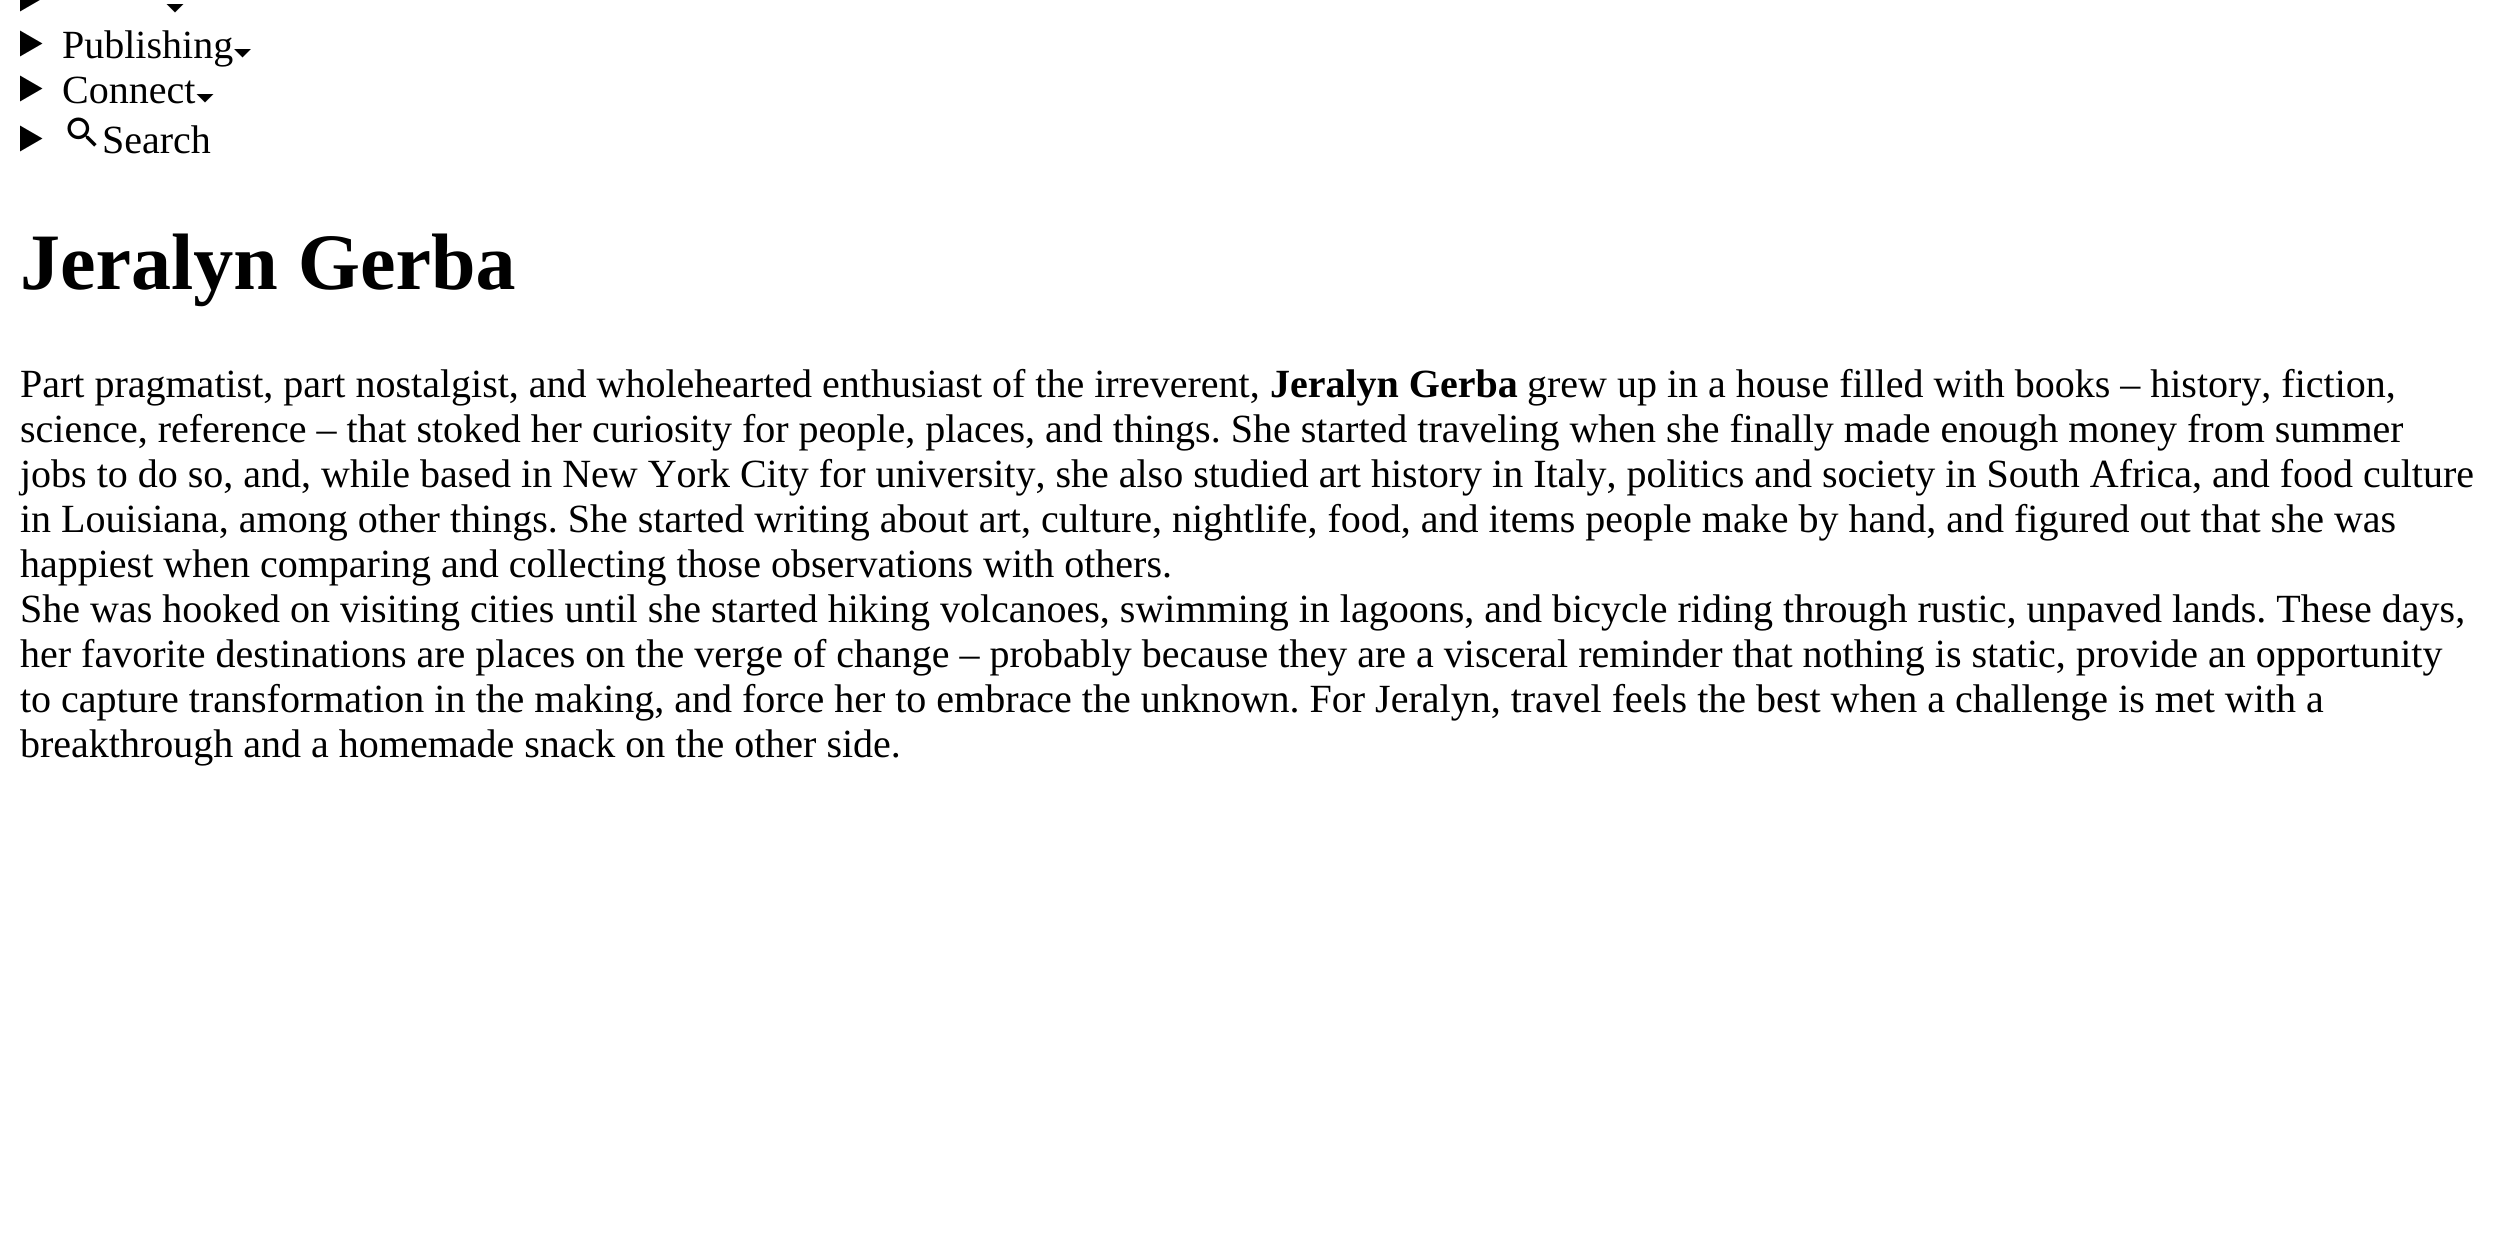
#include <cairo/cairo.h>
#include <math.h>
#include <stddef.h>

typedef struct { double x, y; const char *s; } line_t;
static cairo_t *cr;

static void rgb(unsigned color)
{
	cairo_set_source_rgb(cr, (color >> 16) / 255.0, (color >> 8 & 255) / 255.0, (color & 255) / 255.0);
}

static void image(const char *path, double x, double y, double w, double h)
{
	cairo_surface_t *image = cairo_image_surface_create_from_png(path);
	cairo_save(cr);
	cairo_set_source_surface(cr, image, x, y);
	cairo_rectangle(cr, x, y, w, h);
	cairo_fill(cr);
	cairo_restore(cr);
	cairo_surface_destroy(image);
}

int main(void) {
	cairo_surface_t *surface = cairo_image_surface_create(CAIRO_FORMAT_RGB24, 2493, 1239);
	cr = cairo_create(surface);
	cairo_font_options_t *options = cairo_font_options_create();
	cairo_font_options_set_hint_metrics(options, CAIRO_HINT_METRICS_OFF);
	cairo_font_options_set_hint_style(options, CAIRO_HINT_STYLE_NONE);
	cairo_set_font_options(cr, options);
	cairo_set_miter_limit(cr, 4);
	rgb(0xffffff);
	cairo_paint(cr);
	rgb(0x000000);
	cairo_new_path(cr);
	cairo_move_to(cr, 20, -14.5);
	cairo_line_to(cr, 42.5, -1.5);
	cairo_line_to(cr, 20, 11.5);
	cairo_close_path(cr);
	cairo_move_to(cr, 20, 30.5);
	cairo_line_to(cr, 42.5, 43.5);
	cairo_line_to(cr, 20, 56.5);
	cairo_close_path(cr);
	cairo_fill(cr);
	cairo_new_path(cr);
	cairo_move_to(cr, 166.5, 4);
	cairo_line_to(cr, 175, 12.5);
	cairo_line_to(cr, 183.5, 4);
	cairo_close_path(cr);
	cairo_fill(cr);
	cairo_new_path(cr);
	cairo_move_to(cr, 234, 49);
	cairo_line_to(cr, 242.5, 57.5);
	cairo_line_to(cr, 251, 49);
	cairo_close_path(cr);
	cairo_move_to(cr, 196.5, 94);
	cairo_line_to(cr, 205, 102.5);
	cairo_line_to(cr, 213.5, 94);
	cairo_close_path(cr);
	cairo_fill(cr);
	cairo_new_path(cr);
	cairo_move_to(cr, 20, 75.5);
	cairo_line_to(cr, 42.5, 88.5);
	cairo_line_to(cr, 20, 101.5);
	cairo_close_path(cr);
	cairo_fill(cr);
	cairo_new_path(cr);
	cairo_move_to(cr, 20, 125.5);
	cairo_line_to(cr, 42.5, 138.5);
	cairo_line_to(cr, 20, 151.5);
	cairo_close_path(cr);
	cairo_fill(cr);
	image("img/1.png", 67, 117, 30, 30);
	cairo_select_font_face(cr, "Liberation Serif", CAIRO_FONT_SLANT_NORMAL, CAIRO_FONT_WEIGHT_NORMAL);
	cairo_set_font_size(cr, 40);
	{
		static const line_t items[] = {
			{62, 58, "Publishing"},
			{62, 103, "Connect"},
			{102, 153, "Search"},
		};
		for (size_t i = 0; i < sizeof items / sizeof *items; i++) {
			cairo_move_to(cr, items[i].x, items[i].y);
			cairo_show_text(cr, items[i].s);
		}
	}
	cairo_select_font_face(cr, "Liberation Serif", CAIRO_FONT_SLANT_NORMAL, CAIRO_FONT_WEIGHT_BOLD);
	cairo_set_font_size(cr, 80);
	cairo_move_to(cr, 20, 289);
	cairo_show_text(cr, "Jeralyn Gerba");
	cairo_select_font_face(cr, "Liberation Serif", CAIRO_FONT_SLANT_NORMAL, CAIRO_FONT_WEIGHT_NORMAL);
	cairo_set_font_size(cr, 40);
	cairo_move_to(cr, 20, 397);
	cairo_show_text(cr, "Part pragmatist, part nostalgist, and wholehearted enthusiast of the irreverent,");
	cairo_select_font_face(cr, "Liberation Serif", CAIRO_FONT_SLANT_NORMAL, CAIRO_FONT_WEIGHT_BOLD);
	cairo_move_to(cr, 1270, 397);
	cairo_show_text(cr, "Jeralyn Gerba");
	cairo_select_font_face(cr, "Liberation Serif", CAIRO_FONT_SLANT_NORMAL, CAIRO_FONT_WEIGHT_NORMAL);
	{
		static const line_t items[] = {
			{1527, 397, "grew up in a house filled with books – history, fiction,"},
			{20, 442, "science, reference – that stoked her curiosity for people, places, and things. She started traveling when she finally made enough money from summer"},
			{20, 487, "jobs to do so, and, while based in New York City for university, she also studied art history in Italy, politics and society in South Africa, and food culture"},
			{20, 532, "in Louisiana, among other things. She started writing about art, culture, nightlife, food, and items people make by hand, and figured out that she was"},
			{20, 577, "happiest when comparing and collecting those observations with others."},
			{20, 622, "She was hooked on visiting cities until she started hiking volcanoes, swimming in lagoons, and bicycle riding through rustic, unpaved lands. These days,"},
			{20, 667, "her favorite destinations are places on the verge of change – probably because they are a visceral reminder that nothing is static, provide an opportunity"},
			{20, 712, "to capture transformation in the making, and force her to embrace the unknown. For Jeralyn, travel feels the best when a challenge is met with a"},
			{20, 757, "breakthrough and a homemade snack on the other side."},
		};
		for (size_t i = 0; i < sizeof items / sizeof *items; i++) {
			cairo_move_to(cr, items[i].x, items[i].y);
			cairo_show_text(cr, items[i].s);
		}
	}
	cairo_surface_write_to_png(surface, "page.png");
	cairo_font_options_destroy(options);
	cairo_destroy(cr);
	cairo_surface_destroy(surface);
	return 0;
}
